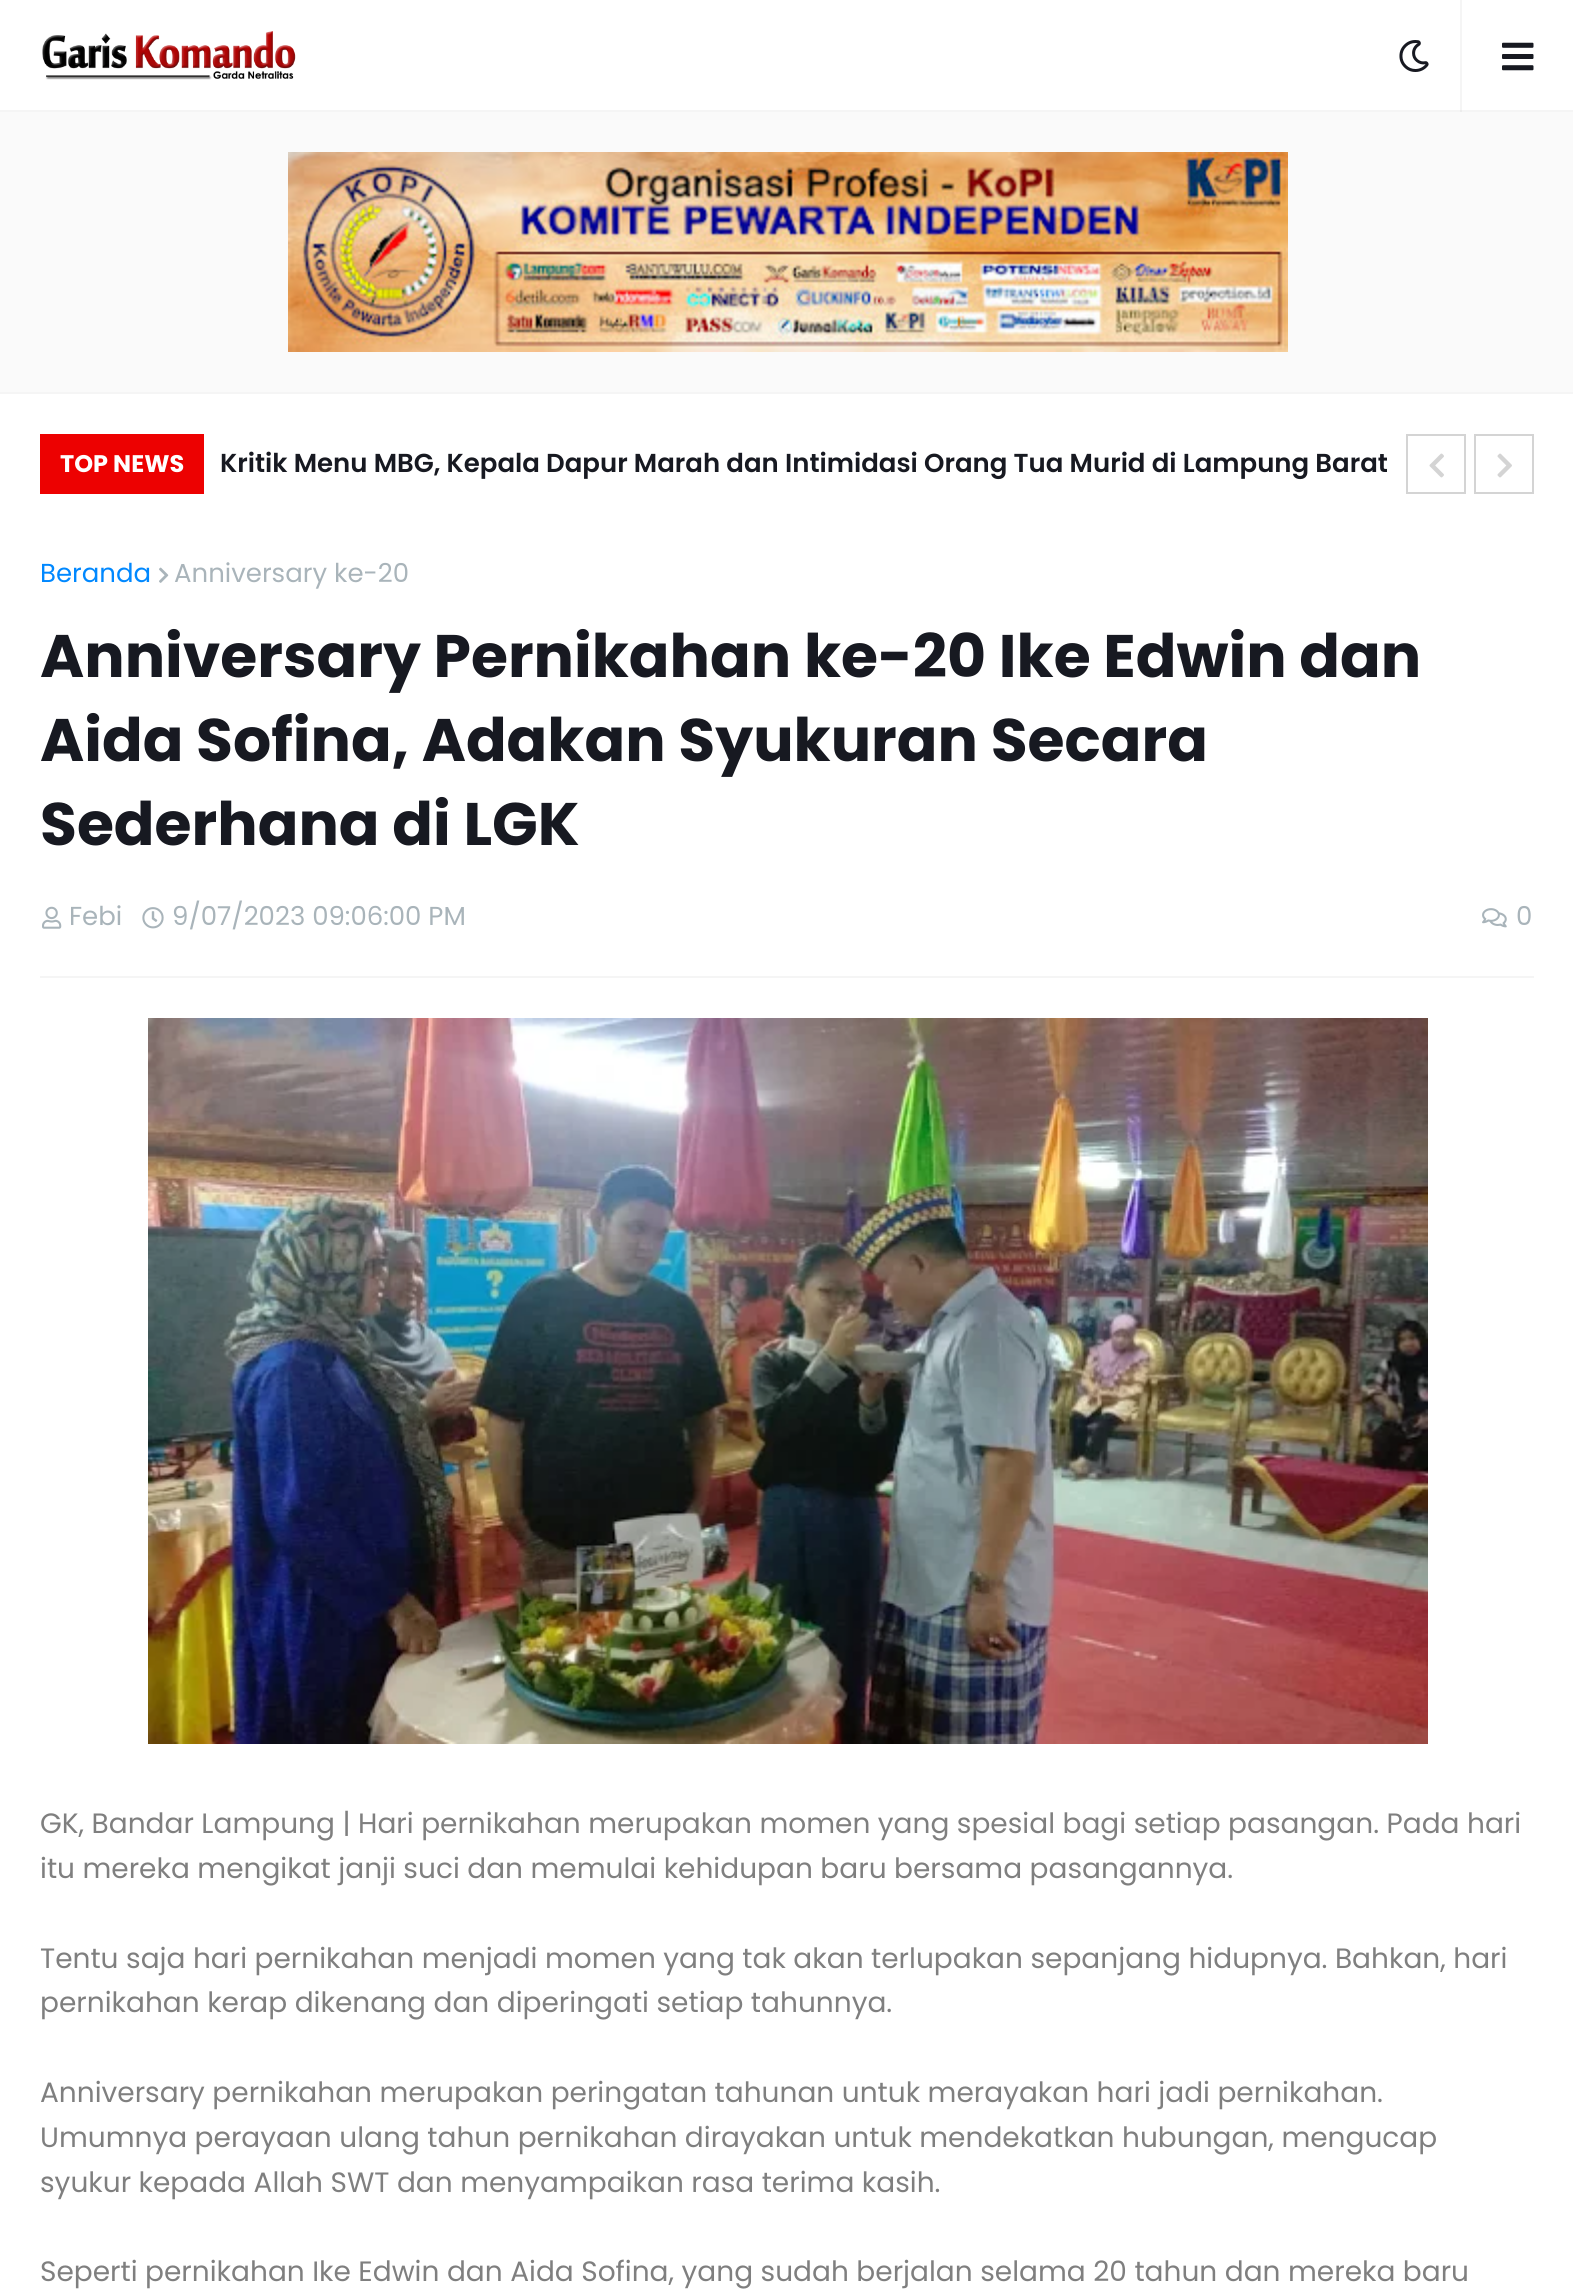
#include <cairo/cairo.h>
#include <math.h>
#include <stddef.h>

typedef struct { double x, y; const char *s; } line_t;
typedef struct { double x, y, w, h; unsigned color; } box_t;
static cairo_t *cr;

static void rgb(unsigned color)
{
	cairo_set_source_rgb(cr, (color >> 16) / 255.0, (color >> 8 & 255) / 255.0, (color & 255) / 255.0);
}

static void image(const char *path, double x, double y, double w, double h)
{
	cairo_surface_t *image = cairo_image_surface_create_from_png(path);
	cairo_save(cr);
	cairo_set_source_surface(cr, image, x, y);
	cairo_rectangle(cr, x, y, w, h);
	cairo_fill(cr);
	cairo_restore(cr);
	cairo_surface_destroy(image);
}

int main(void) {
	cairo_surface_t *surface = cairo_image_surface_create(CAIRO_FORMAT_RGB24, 1573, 2294);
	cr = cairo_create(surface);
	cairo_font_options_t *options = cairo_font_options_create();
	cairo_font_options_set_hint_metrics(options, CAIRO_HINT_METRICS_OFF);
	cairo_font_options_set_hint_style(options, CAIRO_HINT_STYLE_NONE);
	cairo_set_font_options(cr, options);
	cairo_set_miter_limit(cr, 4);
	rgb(0xffffff);
	cairo_paint(cr);
	{
		static const box_t items[] = {
			{1460, 0, 2, 112, 0xf5f5f5},
			{0, 110, 1573, 2, 0xf5f5f5},
			{1460, 110, 2, 2, 0xececec},
		};
		for (size_t i = 0; i < sizeof items / sizeof *items; i++) {
			rgb(items[i].color);
			cairo_rectangle(cr, items[i].x, items[i].y, items[i].w, items[i].h);
			cairo_fill(cr);
		}
	}
	image("img/1.png", 42, 31, 254, 49);
	image("img/2.png", 1399, 40, 30, 32);
	image("img/3.png", 1502, 42, 32, 29);
	rgb(0xf5f5f5);
	cairo_rectangle(cr, 0, 392, 1573, 2);
	cairo_fill(cr);
	rgb(0xfafafa);
	cairo_rectangle(cr, 0, 112, 1573, 280);
	cairo_fill(cr);
	image("img/4.png", 288, 152, 1000, 200);
	rgb(0xed0101);
	cairo_rectangle(cr, 40, 434, 164, 60);
	cairo_fill(cr);
	cairo_rectangle(cr, 1407, 435, 58, 58);
	rgb(0xd4d4d4);
	cairo_stroke(cr);
	image("img/5.png", 1429, 453, 15, 25);
	cairo_rectangle(cr, 1475, 435, 58, 58);
	cairo_stroke(cr);
	image("img/6.png", 1497, 453, 15, 25);
	rgb(0xf5f5f5);
	cairo_rectangle(cr, 40, 976, 1494, 2);
	cairo_fill(cr);
	image("img/7.png", 159, 567, 10, 16);
	image("img/8.png", 42, 906, 20, 23);
	image("img/9.png", 142, 907, 22, 22);
	image("img/10.png", 1482, 908, 25, 20);
	image("img/11.png", 148, 1018, 1280, 726);
	cairo_select_font_face(cr, "Poppins", CAIRO_FONT_SLANT_NORMAL, CAIRO_FONT_WEIGHT_BOLD);
	cairo_set_font_size(cr, 24);
	rgb(0xffffff);
	cairo_move_to(cr, 60, 472);
	cairo_show_text(cr, "TOP NEWS");
	cairo_select_font_face(cr, "Poppins SemiBold", CAIRO_FONT_SLANT_NORMAL, CAIRO_FONT_WEIGHT_NORMAL);
	cairo_set_font_size(cr, 26);
	rgb(0x171921);
	cairo_move_to(cr, 220, 472);
	cairo_show_text(cr, "Kritik Menu MBG, Kepala Dapur Marah dan Intimidasi Orang Tua Murid di Lampung Barat");
	cairo_select_font_face(cr, "Poppins", CAIRO_FONT_SLANT_NORMAL, CAIRO_FONT_WEIGHT_NORMAL);
	rgb(0x0088ff);
	cairo_move_to(cr, 40, 582);
	cairo_show_text(cr, "Beranda");
	rgb(0xa9b4ba);
	cairo_move_to(cr, 174, 582);
	cairo_show_text(cr, "Anniversary ke-20");
	cairo_select_font_face(cr, "Poppins", CAIRO_FONT_SLANT_NORMAL, CAIRO_FONT_WEIGHT_BOLD);
	cairo_set_font_size(cr, 60);
	rgb(0x171921);
	{
		static const line_t items[] = {
			{40, 677, "Anniversary Pernikahan ke-20 Ike Edwin dan"},
			{40, 761, "Aida Sofina, Adakan Syukuran Secara"},
			{40, 845, "Sederhana di LGK"},
		};
		for (size_t i = 0; i < sizeof items / sizeof *items; i++) {
			cairo_move_to(cr, items[i].x, items[i].y);
			cairo_show_text(cr, items[i].s);
		}
	}
	cairo_select_font_face(cr, "Poppins", CAIRO_FONT_SLANT_NORMAL, CAIRO_FONT_WEIGHT_NORMAL);
	cairo_set_font_size(cr, 26);
	rgb(0xa9b4ba);
	{
		static const line_t items[] = {
			{69, 925, "Febi"},
			{172, 925, "9/07/2023 09:06:00 PM"},
			{1516, 925, "0"},
		};
		for (size_t i = 0; i < sizeof items / sizeof *items; i++) {
			cairo_move_to(cr, items[i].x, items[i].y);
			cairo_show_text(cr, items[i].s);
		}
	}
	cairo_set_font_size(cr, 28);
	rgb(0x7f7f7f);
	{
		static const line_t items[] = {
			{40, 1833, "GK, Bandar Lampung | Hari pernikahan merupakan momen yang spesial bagi setiap pasangan. Pada hari"},
			{40, 1878, "itu mereka mengikat janji suci dan memulai kehidupan baru bersama pasangannya."},
			{40, 1968, "Tentu saja hari pernikahan menjadi momen yang tak akan terlupakan sepanjang hidupnya. Bahkan, hari"},
			{40, 2012, "pernikahan kerap dikenang dan diperingati setiap tahunnya."},
			{40, 2102, "Anniversary pernikahan merupakan peringatan tahunan untuk merayakan hari jadi pernikahan."},
			{40, 2147, "Umumnya perayaan ulang tahun pernikahan dirayakan untuk mendekatkan hubungan, mengucap"},
			{40, 2192, "syukur kepada Allah SWT dan menyampaikan rasa terima kasih."},
			{40, 2281, "Seperti pernikahan Ike Edwin dan Aida Sofina, yang sudah berjalan selama 20 tahun dan mereka baru"},
		};
		for (size_t i = 0; i < sizeof items / sizeof *items; i++) {
			cairo_move_to(cr, items[i].x, items[i].y);
			cairo_show_text(cr, items[i].s);
		}
	}
	cairo_surface_write_to_png(surface, "page.png");
	cairo_font_options_destroy(options);
	cairo_destroy(cr);
	cairo_surface_destroy(surface);
	return 0;
}
